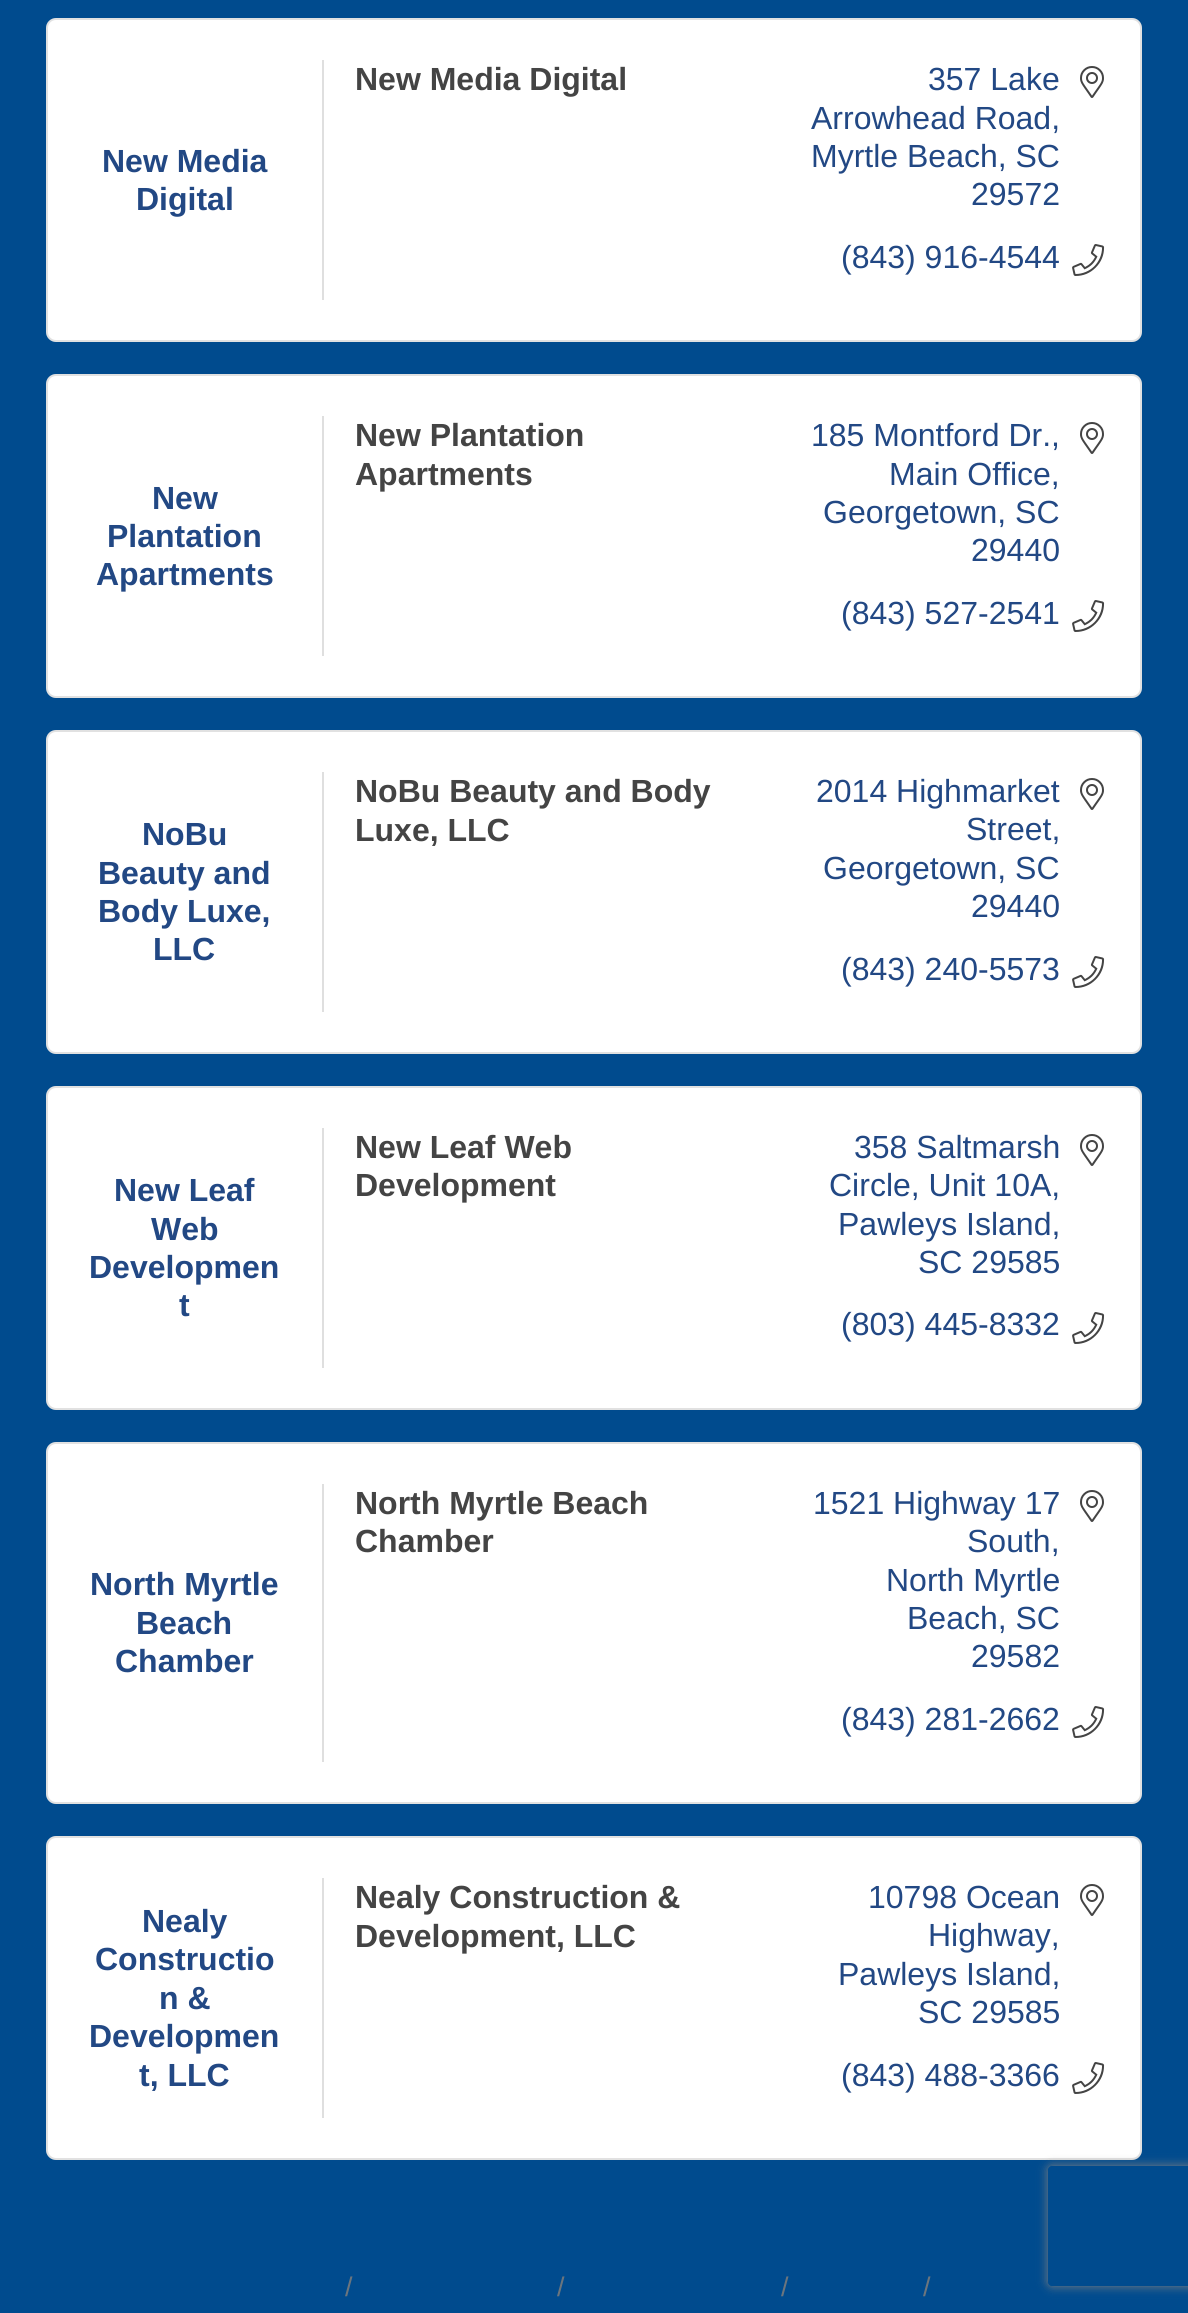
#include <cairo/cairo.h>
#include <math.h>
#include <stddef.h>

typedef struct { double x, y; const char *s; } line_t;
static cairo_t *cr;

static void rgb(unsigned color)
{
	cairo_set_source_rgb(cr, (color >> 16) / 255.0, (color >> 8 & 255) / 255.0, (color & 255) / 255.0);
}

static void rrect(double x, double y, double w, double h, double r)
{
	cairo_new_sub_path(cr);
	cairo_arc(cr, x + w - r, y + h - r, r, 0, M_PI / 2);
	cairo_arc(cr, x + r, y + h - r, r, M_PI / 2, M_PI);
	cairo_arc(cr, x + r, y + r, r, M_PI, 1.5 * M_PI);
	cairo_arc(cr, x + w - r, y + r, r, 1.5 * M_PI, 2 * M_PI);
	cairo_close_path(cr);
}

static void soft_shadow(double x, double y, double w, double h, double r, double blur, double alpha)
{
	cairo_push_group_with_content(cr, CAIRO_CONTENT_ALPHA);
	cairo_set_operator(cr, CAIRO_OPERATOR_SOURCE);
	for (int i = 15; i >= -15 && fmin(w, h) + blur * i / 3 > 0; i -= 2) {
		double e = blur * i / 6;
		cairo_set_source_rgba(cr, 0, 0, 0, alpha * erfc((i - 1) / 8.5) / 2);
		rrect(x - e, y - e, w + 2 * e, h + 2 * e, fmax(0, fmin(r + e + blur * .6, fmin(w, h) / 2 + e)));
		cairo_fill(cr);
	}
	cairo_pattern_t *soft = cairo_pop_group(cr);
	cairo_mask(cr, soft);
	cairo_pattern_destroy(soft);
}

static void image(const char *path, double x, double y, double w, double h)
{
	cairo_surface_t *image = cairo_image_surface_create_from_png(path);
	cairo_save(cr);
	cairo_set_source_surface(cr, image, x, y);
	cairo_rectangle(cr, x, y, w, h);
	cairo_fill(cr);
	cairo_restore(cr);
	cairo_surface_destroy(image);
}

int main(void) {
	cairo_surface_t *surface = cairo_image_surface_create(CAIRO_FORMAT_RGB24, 1188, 2313);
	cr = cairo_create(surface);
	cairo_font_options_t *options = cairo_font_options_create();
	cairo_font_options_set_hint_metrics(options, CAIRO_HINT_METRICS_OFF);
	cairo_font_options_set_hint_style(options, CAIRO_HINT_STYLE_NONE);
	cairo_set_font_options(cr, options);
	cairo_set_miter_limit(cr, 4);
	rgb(0x004b8e);
	cairo_paint(cr);
	rgb(0xffffff);
	rrect(46, 18, 1096, 324, 10);
	cairo_fill(cr);
	rrect(47, 19, 1094, 322, 9);
	cairo_set_source_rgba(cr, 0, 0, 0, 0.12);
	cairo_stroke(cr);
	rgb(0xdfdfdf);
	cairo_rectangle(cr, 322, 60, 2, 240);
	cairo_fill(cr);
	image("img/1.png", 1080, 66, 24, 32);
	image("img/2.png", 1072, 244, 33, 32);
	rgb(0xffffff);
	rrect(46, 374, 1096, 324, 10);
	cairo_fill(cr);
	rrect(47, 375, 1094, 322, 9);
	cairo_set_source_rgba(cr, 0, 0, 0, 0.12);
	cairo_stroke(cr);
	rgb(0xdfdfdf);
	cairo_rectangle(cr, 322, 416, 2, 240);
	cairo_fill(cr);
	image("img/1.png", 1080, 422, 24, 32);
	image("img/2.png", 1072, 600, 33, 32);
	rgb(0xffffff);
	rrect(46, 730, 1096, 324, 10);
	cairo_fill(cr);
	rrect(47, 731, 1094, 322, 9);
	cairo_set_source_rgba(cr, 0, 0, 0, 0.12);
	cairo_stroke(cr);
	rgb(0xdfdfdf);
	cairo_rectangle(cr, 322, 772, 2, 240);
	cairo_fill(cr);
	image("img/1.png", 1080, 778, 24, 32);
	image("img/2.png", 1072, 956, 33, 32);
	rgb(0xffffff);
	rrect(46, 1086, 1096, 324, 10);
	cairo_fill(cr);
	rrect(47, 1087, 1094, 322, 9);
	cairo_set_source_rgba(cr, 0, 0, 0, 0.12);
	cairo_stroke(cr);
	rgb(0xdfdfdf);
	cairo_rectangle(cr, 322, 1128, 2, 240);
	cairo_fill(cr);
	image("img/1.png", 1080, 1134, 24, 32);
	image("img/2.png", 1072, 1312, 33, 32);
	rgb(0xffffff);
	rrect(46, 1442, 1096, 362, 10);
	cairo_fill(cr);
	rrect(47, 1443, 1094, 360, 9);
	cairo_set_source_rgba(cr, 0, 0, 0, 0.12);
	cairo_stroke(cr);
	rgb(0xdfdfdf);
	cairo_rectangle(cr, 322, 1484, 2, 278);
	cairo_fill(cr);
	image("img/1.png", 1080, 1490, 24, 32);
	image("img/2.png", 1072, 1706, 33, 32);
	rgb(0xffffff);
	rrect(46, 1836, 1096, 324, 10);
	cairo_fill(cr);
	rrect(47, 1837, 1094, 322, 9);
	cairo_set_source_rgba(cr, 0, 0, 0, 0.12);
	cairo_stroke(cr);
	rgb(0xdfdfdf);
	cairo_rectangle(cr, 322, 1878, 2, 240);
	cairo_fill(cr);
	image("img/1.png", 1080, 1884, 24, 32);
	image("img/2.png", 1072, 2062, 33, 32);
	cairo_save(cr);
	cairo_set_fill_rule(cr, CAIRO_FILL_RULE_EVEN_ODD);
	cairo_new_path(cr);
	cairo_move_to(cr, 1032, 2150);
	cairo_line_to(cr, 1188, 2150);
	cairo_line_to(cr, 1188, 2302);
	cairo_line_to(cr, 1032, 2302);
	cairo_close_path(cr);
	cairo_move_to(cr, 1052, 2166);
	cairo_line_to(cr, 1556, 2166);
	cairo_curve_to(cr, 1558, 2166, 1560, 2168, 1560, 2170);
	cairo_line_to(cr, 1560, 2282);
	cairo_curve_to(cr, 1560, 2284, 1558, 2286, 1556, 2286);
	cairo_line_to(cr, 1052, 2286);
	cairo_curve_to(cr, 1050, 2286, 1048, 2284, 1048, 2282);
	cairo_line_to(cr, 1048, 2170);
	cairo_curve_to(cr, 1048, 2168, 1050, 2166, 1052, 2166);
	cairo_close_path(cr);
	cairo_clip(cr);
	rgb(0x808080);
	soft_shadow(1048, 2166, 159, 120, 4, 5, 1);
	cairo_restore(cr);
	cairo_select_font_face(cr, "Liberation Sans", CAIRO_FONT_SLANT_NORMAL, CAIRO_FONT_WEIGHT_BOLD);
	cairo_set_font_size(cr, 32);
	rgb(0x224884);
	cairo_move_to(cr, 102, 172);
	cairo_show_text(cr, "New Media");
	cairo_move_to(cr, 136, 210);
	cairo_show_text(cr, "Digital");
	rgb(0x444444);
	cairo_move_to(cr, 355, 90);
	cairo_show_text(cr, "New Media Digital");
	cairo_select_font_face(cr, "Liberation Sans", CAIRO_FONT_SLANT_NORMAL, CAIRO_FONT_WEIGHT_NORMAL);
	rgb(0x224884);
	{
		static const line_t items[] = {
			{928, 90, "357 Lake"},
			{811, 129, "Arrowhead Road,"},
			{811, 167, "Myrtle Beach, SC"},
			{971, 205, "29572"},
			{841, 268, "(843) 916-4544"},
		};
		for (size_t i = 0; i < sizeof items / sizeof *items; i++) {
			cairo_move_to(cr, items[i].x, items[i].y);
			cairo_show_text(cr, items[i].s);
		}
	}
	cairo_select_font_face(cr, "Liberation Sans", CAIRO_FONT_SLANT_NORMAL, CAIRO_FONT_WEIGHT_BOLD);
	{
		static const line_t items[] = {
			{152, 509, "New"},
			{107, 547, "Plantation"},
			{96, 585, "Apartments"},
		};
		for (size_t i = 0; i < sizeof items / sizeof *items; i++) {
			cairo_move_to(cr, items[i].x, items[i].y);
			cairo_show_text(cr, items[i].s);
		}
	}
	rgb(0x444444);
	cairo_move_to(cr, 355, 446);
	cairo_show_text(cr, "New Plantation");
	cairo_move_to(cr, 355, 485);
	cairo_show_text(cr, "Apartments");
	cairo_select_font_face(cr, "Liberation Sans", CAIRO_FONT_SLANT_NORMAL, CAIRO_FONT_WEIGHT_NORMAL);
	rgb(0x224884);
	{
		static const line_t items[] = {
			{811, 446, "185 Montford Dr.,"},
			{889, 485, "Main Office,"},
			{823, 523, "Georgetown, SC"},
			{971, 561, "29440"},
			{841, 624, "(843) 527-2541"},
		};
		for (size_t i = 0; i < sizeof items / sizeof *items; i++) {
			cairo_move_to(cr, items[i].x, items[i].y);
			cairo_show_text(cr, items[i].s);
		}
	}
	cairo_select_font_face(cr, "Liberation Sans", CAIRO_FONT_SLANT_NORMAL, CAIRO_FONT_WEIGHT_BOLD);
	{
		static const line_t items[] = {
			{142, 845, "NoBu"},
			{98, 884, "Beauty and"},
			{98, 922, "Body Luxe,"},
			{153, 960, "LLC"},
		};
		for (size_t i = 0; i < sizeof items / sizeof *items; i++) {
			cairo_move_to(cr, items[i].x, items[i].y);
			cairo_show_text(cr, items[i].s);
		}
	}
	rgb(0x444444);
	cairo_move_to(cr, 355, 802);
	cairo_show_text(cr, "NoBu Beauty and Body");
	cairo_move_to(cr, 355, 841);
	cairo_show_text(cr, "Luxe, LLC");
	cairo_select_font_face(cr, "Liberation Sans", CAIRO_FONT_SLANT_NORMAL, CAIRO_FONT_WEIGHT_NORMAL);
	rgb(0x224884);
	{
		static const line_t items[] = {
			{816, 802, "2014 Highmarket"},
			{966, 840, "Street,"},
			{823, 879, "Georgetown, SC"},
			{971, 917, "29440"},
			{841, 980, "(843) 240-5573"},
		};
		for (size_t i = 0; i < sizeof items / sizeof *items; i++) {
			cairo_move_to(cr, items[i].x, items[i].y);
			cairo_show_text(cr, items[i].s);
		}
	}
	cairo_select_font_face(cr, "Liberation Sans", CAIRO_FONT_SLANT_NORMAL, CAIRO_FONT_WEIGHT_BOLD);
	{
		static const line_t items[] = {
			{114, 1201, "New Leaf"},
			{151, 1240, "Web"},
			{89, 1278, "Developmen"},
			{179, 1316, "t"},
		};
		for (size_t i = 0; i < sizeof items / sizeof *items; i++) {
			cairo_move_to(cr, items[i].x, items[i].y);
			cairo_show_text(cr, items[i].s);
		}
	}
	rgb(0x444444);
	cairo_move_to(cr, 355, 1158);
	cairo_show_text(cr, "New Leaf Web");
	cairo_move_to(cr, 355, 1196);
	cairo_show_text(cr, "Development");
	cairo_select_font_face(cr, "Liberation Sans", CAIRO_FONT_SLANT_NORMAL, CAIRO_FONT_WEIGHT_NORMAL);
	rgb(0x224884);
	{
		static const line_t items[] = {
			{854, 1158, "358 Saltmarsh"},
			{829, 1196, "Circle, Unit 10A,"},
			{838, 1235, "Pawleys Island,"},
			{918, 1273, "SC 29585"},
			{841, 1335, "(803) 445-8332"},
		};
		for (size_t i = 0; i < sizeof items / sizeof *items; i++) {
			cairo_move_to(cr, items[i].x, items[i].y);
			cairo_show_text(cr, items[i].s);
		}
	}
	cairo_select_font_face(cr, "Liberation Sans", CAIRO_FONT_SLANT_NORMAL, CAIRO_FONT_WEIGHT_BOLD);
	{
		static const line_t items[] = {
			{90, 1595, "North Myrtle"},
			{136, 1634, "Beach"},
			{115, 1672, "Chamber"},
		};
		for (size_t i = 0; i < sizeof items / sizeof *items; i++) {
			cairo_move_to(cr, items[i].x, items[i].y);
			cairo_show_text(cr, items[i].s);
		}
	}
	rgb(0x444444);
	cairo_move_to(cr, 355, 1514);
	cairo_show_text(cr, "North Myrtle Beach");
	cairo_move_to(cr, 355, 1552);
	cairo_show_text(cr, "Chamber");
	cairo_select_font_face(cr, "Liberation Sans", CAIRO_FONT_SLANT_NORMAL, CAIRO_FONT_WEIGHT_NORMAL);
	rgb(0x224884);
	{
		static const line_t items[] = {
			{813, 1514, "1521 Highway 17"},
			{967, 1552, "South,"},
			{886, 1591, "North Myrtle"},
			{907, 1629, "Beach, SC"},
			{971, 1667, "29582"},
			{841, 1730, "(843) 281-2662"},
		};
		for (size_t i = 0; i < sizeof items / sizeof *items; i++) {
			cairo_move_to(cr, items[i].x, items[i].y);
			cairo_show_text(cr, items[i].s);
		}
	}
	cairo_select_font_face(cr, "Liberation Sans", CAIRO_FONT_SLANT_NORMAL, CAIRO_FONT_WEIGHT_BOLD);
	{
		static const line_t items[] = {
			{142, 1932, "Nealy"},
			{95, 1970, "Constructio"},
			{159, 2009, "n &"},
			{89, 2047, "Developmen"},
			{139, 2086, "t, LLC"},
		};
		for (size_t i = 0; i < sizeof items / sizeof *items; i++) {
			cairo_move_to(cr, items[i].x, items[i].y);
			cairo_show_text(cr, items[i].s);
		}
	}
	rgb(0x444444);
	cairo_move_to(cr, 355, 1908);
	cairo_show_text(cr, "Nealy Construction &");
	cairo_move_to(cr, 355, 1947);
	cairo_show_text(cr, "Development, LLC");
	cairo_select_font_face(cr, "Liberation Sans", CAIRO_FONT_SLANT_NORMAL, CAIRO_FONT_WEIGHT_NORMAL);
	rgb(0x224884);
	{
		static const line_t items[] = {
			{868, 1908, "10798 Ocean"},
			{928, 1946, "Highway,"},
			{838, 1985, "Pawleys Island,"},
			{918, 2023, "SC 29585"},
			{841, 2086, "(843) 488-3366"},
		};
		for (size_t i = 0; i < sizeof items / sizeof *items; i++) {
			cairo_move_to(cr, items[i].x, items[i].y);
			cairo_show_text(cr, items[i].s);
		}
	}
	cairo_set_font_size(cr, 27);
	rgb(0x6c757d);
	{
		static const line_t items[] = {
			{345, 2296, "/"},
			{557, 2296, "/"},
			{781, 2296, "/"},
			{923, 2296, "/"},
		};
		for (size_t i = 0; i < sizeof items / sizeof *items; i++) {
			cairo_move_to(cr, items[i].x, items[i].y);
			cairo_show_text(cr, items[i].s);
		}
	}
	cairo_surface_write_to_png(surface, "page.png");
	cairo_font_options_destroy(options);
	cairo_destroy(cr);
	cairo_surface_destroy(surface);
	return 0;
}
